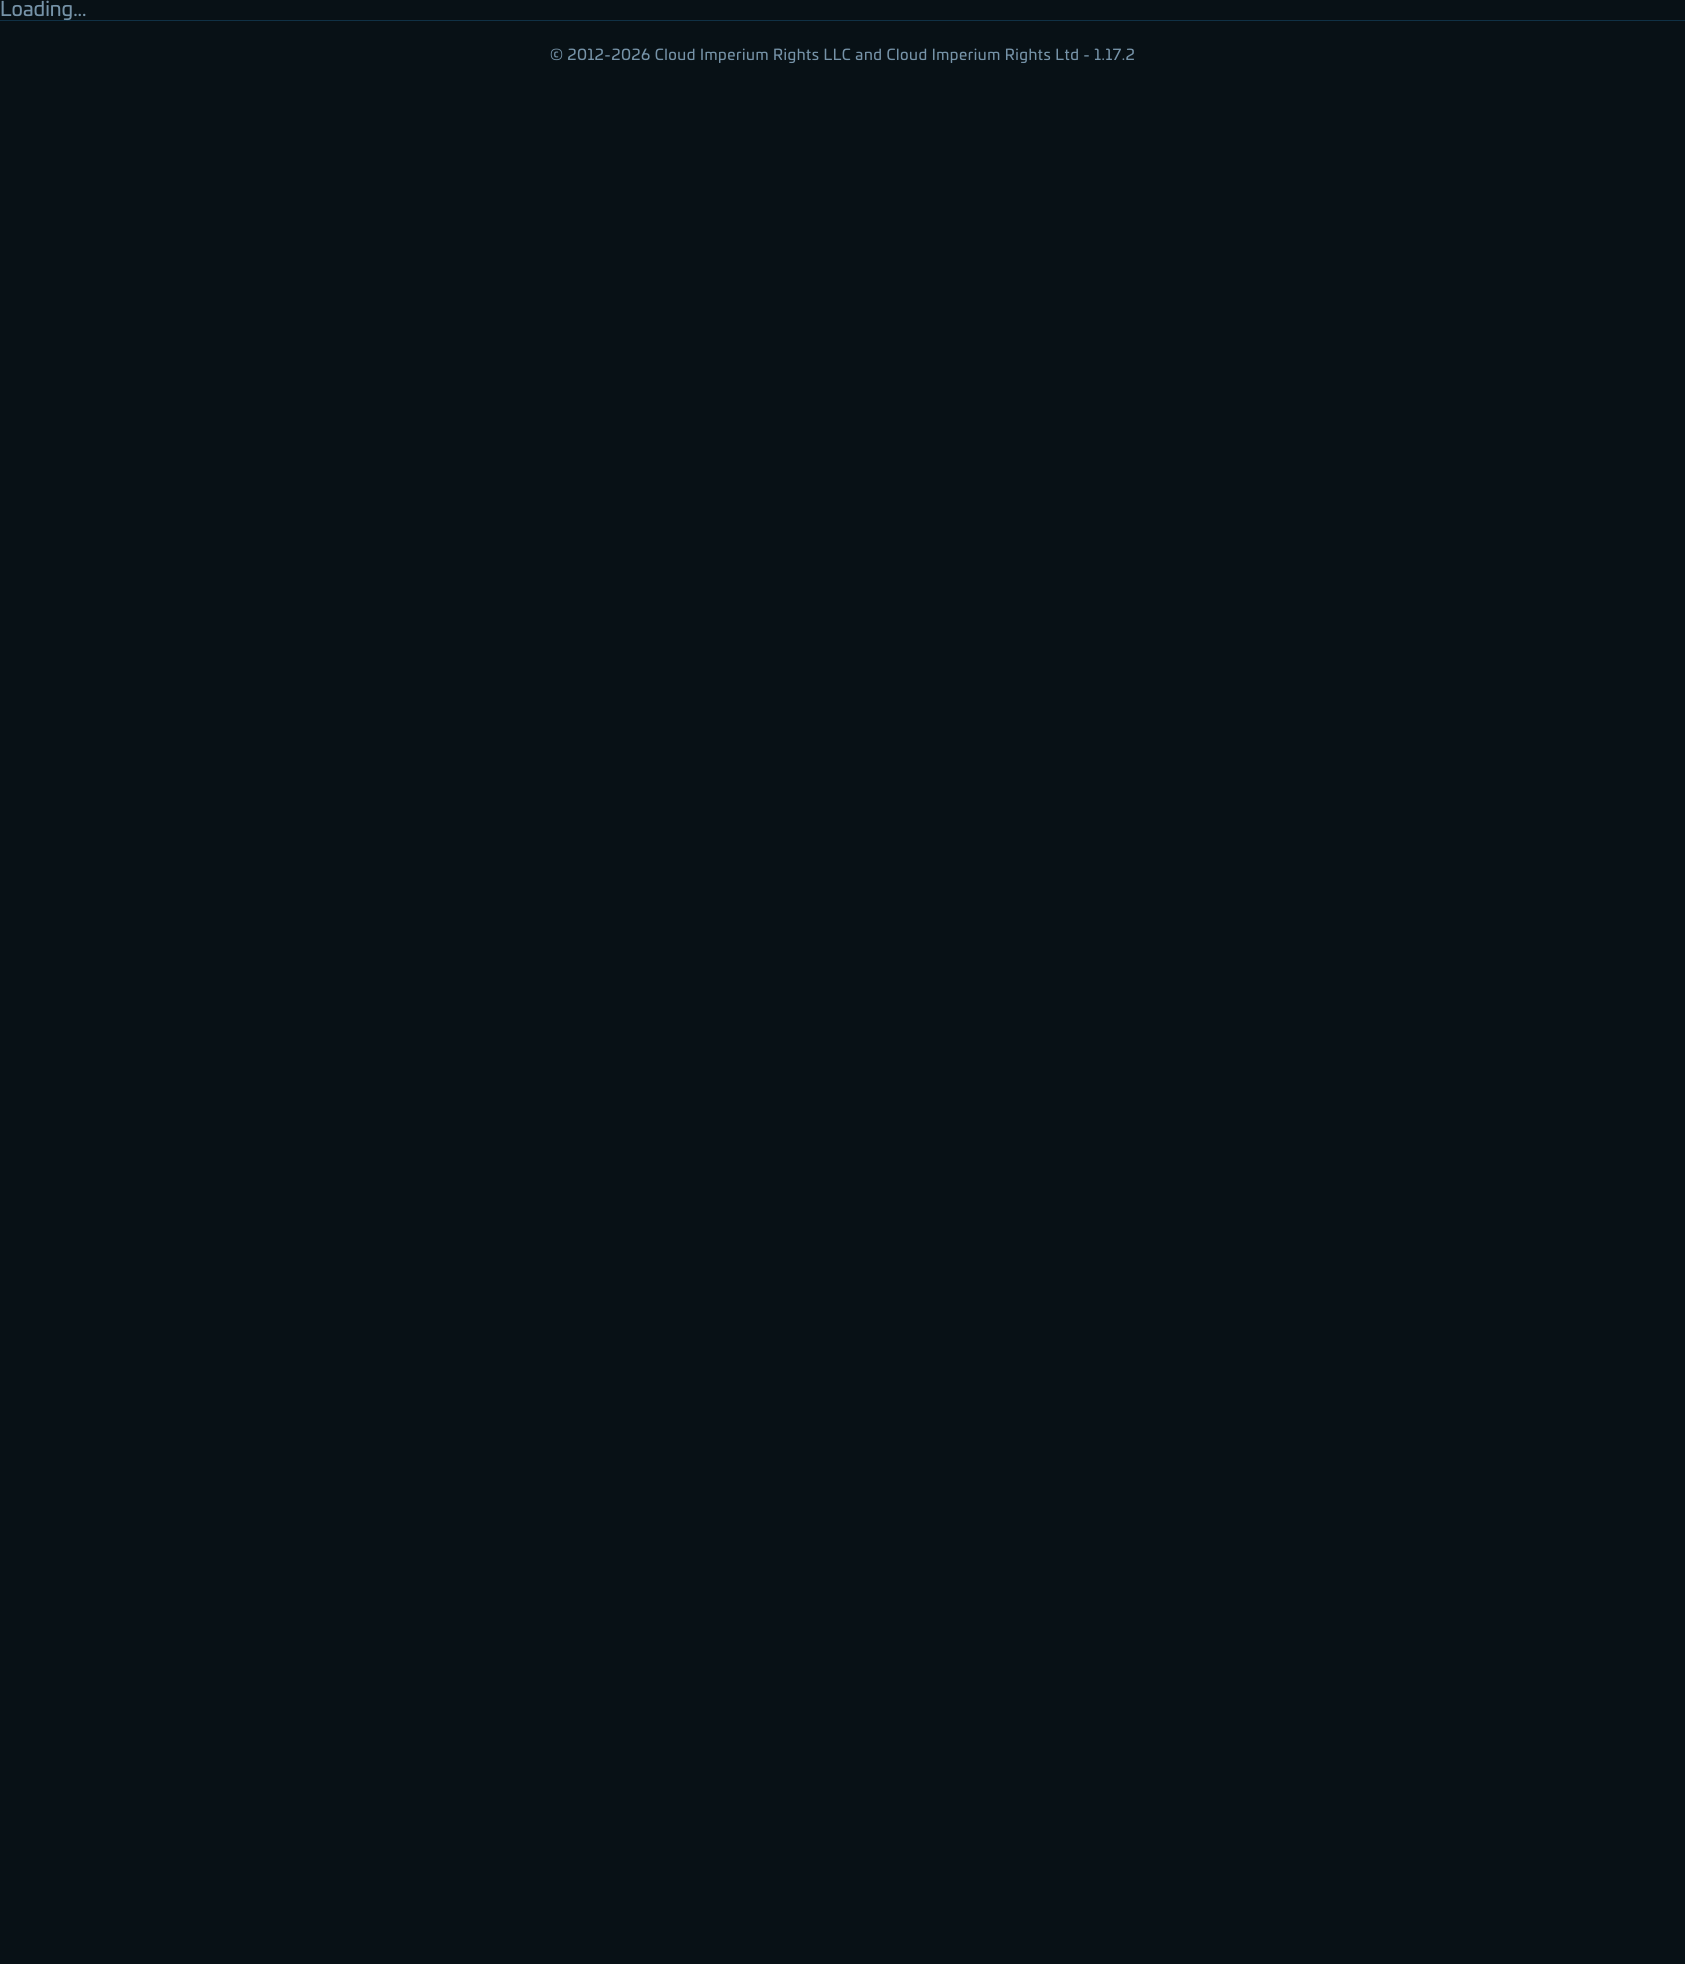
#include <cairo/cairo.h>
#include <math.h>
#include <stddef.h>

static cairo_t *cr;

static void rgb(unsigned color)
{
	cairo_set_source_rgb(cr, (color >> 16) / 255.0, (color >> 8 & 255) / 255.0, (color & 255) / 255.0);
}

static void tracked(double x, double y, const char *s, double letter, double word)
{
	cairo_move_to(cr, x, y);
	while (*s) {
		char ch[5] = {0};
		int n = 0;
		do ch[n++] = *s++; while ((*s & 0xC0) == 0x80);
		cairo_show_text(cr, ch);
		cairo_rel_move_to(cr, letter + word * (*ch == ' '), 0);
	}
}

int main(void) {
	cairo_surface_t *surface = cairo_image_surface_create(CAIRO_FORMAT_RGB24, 1685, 1964);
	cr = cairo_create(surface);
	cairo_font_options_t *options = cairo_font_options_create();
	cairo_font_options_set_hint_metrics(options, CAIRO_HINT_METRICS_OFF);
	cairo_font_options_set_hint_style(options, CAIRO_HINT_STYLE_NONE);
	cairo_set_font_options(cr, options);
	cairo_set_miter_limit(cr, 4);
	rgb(0x081116);
	cairo_paint(cr);
	rgb(0x103145);
	cairo_rectangle(cr, 0, 20, 1685, 1);
	cairo_fill(cr);
	cairo_select_font_face(cr, "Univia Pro", CAIRO_FONT_SLANT_NORMAL, CAIRO_FONT_WEIGHT_NORMAL);
	cairo_set_font_size(cr, 20);
	rgb(0x7693a8);
	cairo_move_to(cr, 0, 16);
	cairo_show_text(cr, "Loading...");
	cairo_set_font_size(cr, 15);
	tracked(550, 60, "© 2012-2026 Cloud Imperium Rights LLC and Cloud Imperium Rights Ltd - 1.17.2", 0.55, 0);
	cairo_surface_write_to_png(surface, "page.png");
	cairo_font_options_destroy(options);
	cairo_destroy(cr);
	cairo_surface_destroy(surface);
	return 0;
}
